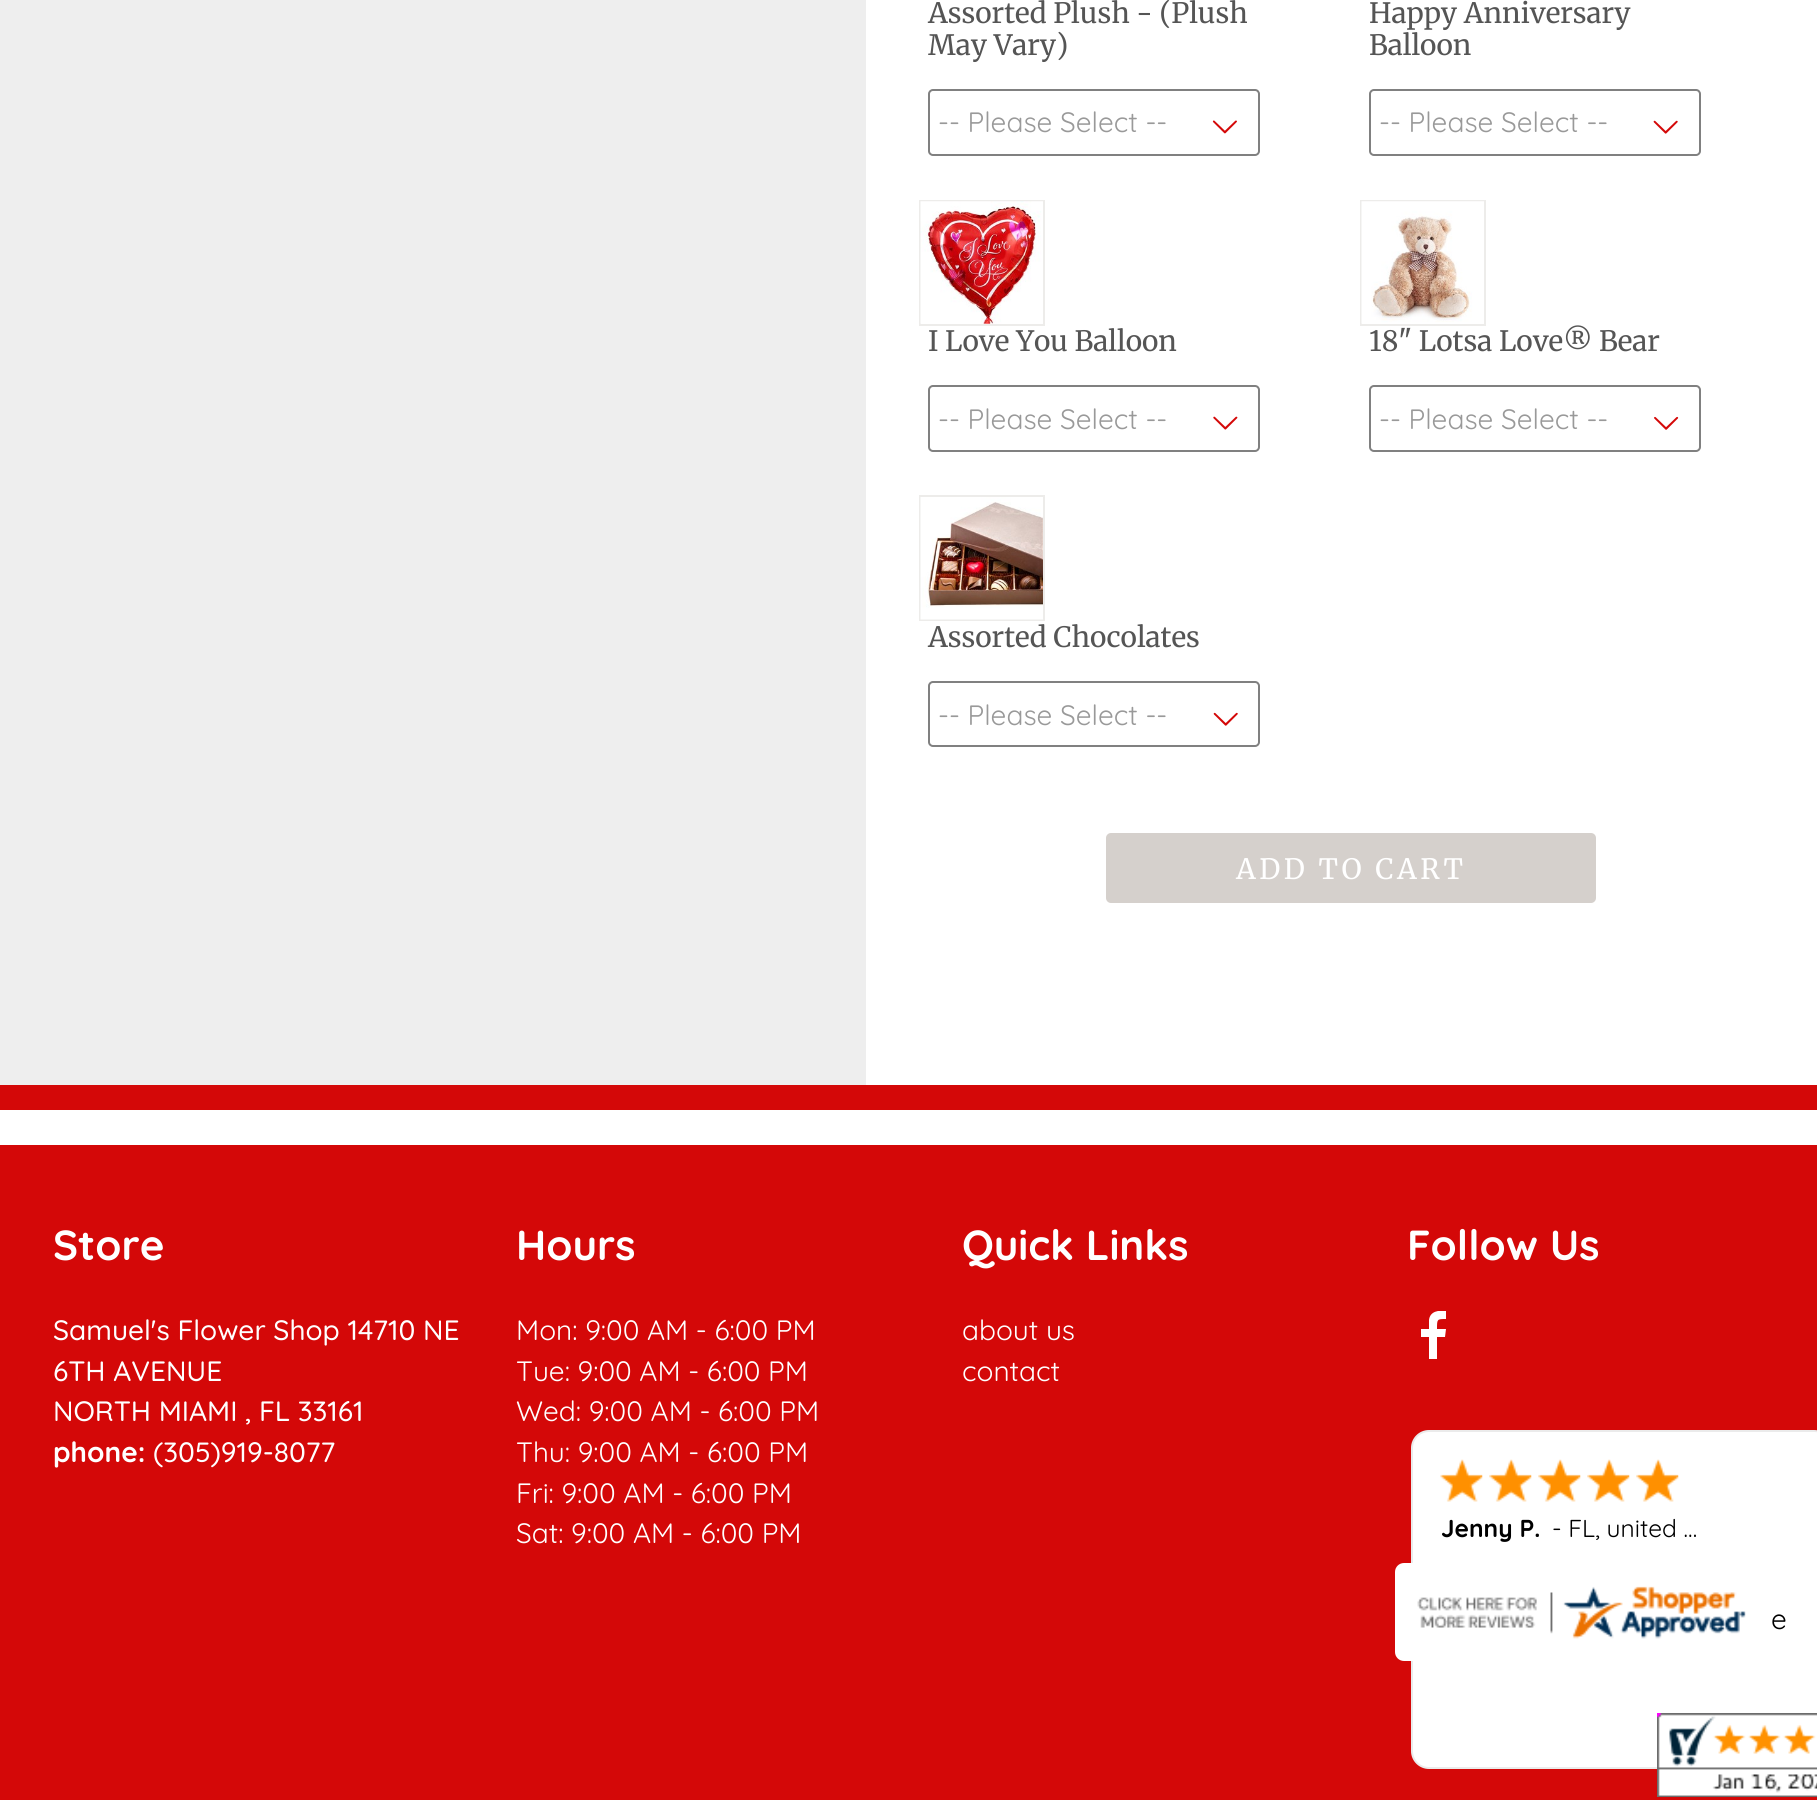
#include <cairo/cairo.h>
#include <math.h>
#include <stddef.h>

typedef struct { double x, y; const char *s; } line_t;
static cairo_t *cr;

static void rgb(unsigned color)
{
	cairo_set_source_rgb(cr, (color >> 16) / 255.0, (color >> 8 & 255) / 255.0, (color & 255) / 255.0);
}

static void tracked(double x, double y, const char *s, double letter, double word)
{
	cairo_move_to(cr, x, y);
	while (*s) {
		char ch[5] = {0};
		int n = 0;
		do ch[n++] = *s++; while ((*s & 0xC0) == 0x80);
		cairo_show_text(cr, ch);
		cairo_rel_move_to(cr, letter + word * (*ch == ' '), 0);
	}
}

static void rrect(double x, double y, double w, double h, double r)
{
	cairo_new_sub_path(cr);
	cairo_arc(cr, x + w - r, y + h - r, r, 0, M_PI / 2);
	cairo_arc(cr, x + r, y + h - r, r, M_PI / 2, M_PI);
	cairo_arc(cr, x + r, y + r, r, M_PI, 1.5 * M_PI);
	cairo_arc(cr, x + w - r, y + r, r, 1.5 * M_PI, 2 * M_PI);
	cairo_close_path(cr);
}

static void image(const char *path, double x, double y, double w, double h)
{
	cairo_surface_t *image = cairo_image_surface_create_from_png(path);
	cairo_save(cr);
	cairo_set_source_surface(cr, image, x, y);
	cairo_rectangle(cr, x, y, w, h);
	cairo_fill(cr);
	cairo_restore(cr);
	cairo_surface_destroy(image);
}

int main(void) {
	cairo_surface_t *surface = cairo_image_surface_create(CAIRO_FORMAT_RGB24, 1817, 1800);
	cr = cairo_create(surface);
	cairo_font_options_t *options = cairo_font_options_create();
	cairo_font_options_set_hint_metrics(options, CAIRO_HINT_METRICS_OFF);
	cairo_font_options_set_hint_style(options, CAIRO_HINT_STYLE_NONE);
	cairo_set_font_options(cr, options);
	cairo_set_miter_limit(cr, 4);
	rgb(0xffffff);
	cairo_paint(cr);
	rgb(0xeeeeee);
	cairo_rectangle(cr, 0, 0, 866, 1085);
	cairo_fill(cr);
	rrect(929, 90, 330, 65, 4);
	rgb(0x808080);
	cairo_stroke(cr);
	image("img/1.png", 1212, 120, 25, 14);
	rrect(1370, 90, 330, 65, 4);
	cairo_stroke(cr);
	image("img/2.png", 1653, 120, 25, 14);
	cairo_rectangle(cr, 920, 201, 124, 124);
	rgb(0xedecea);
	cairo_stroke(cr);
	image("img/3.png", 920, 201, 123, 123);
	rrect(929, 386, 330, 65, 4);
	rgb(0x808080);
	cairo_stroke(cr);
	image("img/4.png", 1213, 416, 25, 14);
	cairo_rectangle(cr, 1361, 201, 124, 124);
	rgb(0xedecea);
	cairo_stroke(cr);
	image("img/5.png", 1361, 201, 123, 123);
	rrect(1370, 386, 330, 65, 4);
	rgb(0x808080);
	cairo_stroke(cr);
	image("img/6.png", 1654, 416, 25, 14);
	cairo_rectangle(cr, 920, 496, 124, 124);
	rgb(0xedecea);
	cairo_stroke(cr);
	image("img/7.png", 920, 497, 123, 123);
	rrect(929, 682, 330, 64, 4);
	rgb(0x808080);
	cairo_stroke(cr);
	image("img/8.png", 1213, 712, 25, 14);
	rgb(0xd5d0cc);
	rrect(1106, 833, 490, 70, 5);
	cairo_fill(cr);
	rgb(0xd40808);
	cairo_rectangle(cr, 0, 1085, 1817, 25);
	cairo_fill(cr);
	cairo_rectangle(cr, 0, 1145, 1817, 655);
	cairo_fill(cr);
	cairo_save(cr);
	cairo_rectangle(cr, 1407, 1311, 53, 52);
	cairo_clip(cr);
	rgb(0xffffff);
	cairo_new_path(cr);
	cairo_move_to(cr, 1446, 1311);
	cairo_line_to(cr, 1446, 1319);
	cairo_curve_to(cr, 1437, 1319, 1437, 1319, 1437, 1329);
	cairo_line_to(cr, 1446, 1329);
	cairo_line_to(cr, 1445, 1337);
	cairo_line_to(cr, 1437, 1337);
	cairo_line_to(cr, 1437, 1359);
	cairo_line_to(cr, 1429, 1359);
	cairo_line_to(cr, 1429, 1337);
	cairo_line_to(cr, 1421, 1337);
	cairo_line_to(cr, 1421, 1329);
	cairo_line_to(cr, 1429, 1329);
	cairo_line_to(cr, 1429, 1320);
	cairo_curve_to(cr, 1430, 1311, 1439, 1310, 1446, 1311);
	cairo_close_path(cr);
	cairo_fill(cr);
	cairo_restore(cr);
	rgb(0xffffff);
	rrect(1412, 1431, 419, 337, 17);
	cairo_fill_preserve(cr);
	rgb(0xebebeb);
	cairo_stroke(cr);
	image("img/9.png", 1440, 1459, 43, 43);
	image("img/10.png", 1489, 1459, 43, 43);
	image("img/10.png", 1538, 1459, 43, 43);
	image("img/11.png", 1587, 1459, 43, 43);
	image("img/10.png", 1636, 1459, 43, 43);
	rgb(0xffffff);
	rrect(1395, 1563, 371, 98, 9);
	cairo_fill(cr);
	image("img/12.png", 1417, 1586, 329, 53);
	image("img/13.png", 1657, 1713, 160, 84);
	cairo_select_font_face(cr, "Merriweather", CAIRO_FONT_SLANT_NORMAL, CAIRO_FONT_WEIGHT_NORMAL);
	cairo_set_font_size(cr, 28);
	rgb(0x555555);
	cairo_move_to(cr, 928, 23);
	cairo_show_text(cr, "Assorted Plush - (Plush");
	cairo_move_to(cr, 928, 55);
	cairo_show_text(cr, "May Vary)");
	cairo_select_font_face(cr, "Quicksand", CAIRO_FONT_SLANT_NORMAL, CAIRO_FONT_WEIGHT_NORMAL);
	rgb(0x999999);
	cairo_move_to(cr, 938, 132);
	cairo_show_text(cr, "-- Please Select --");
	cairo_select_font_face(cr, "Merriweather", CAIRO_FONT_SLANT_NORMAL, CAIRO_FONT_WEIGHT_NORMAL);
	rgb(0x555555);
	cairo_move_to(cr, 1369, 23);
	cairo_show_text(cr, "Happy Anniversary");
	cairo_move_to(cr, 1369, 55);
	cairo_show_text(cr, "Balloon");
	cairo_select_font_face(cr, "Quicksand", CAIRO_FONT_SLANT_NORMAL, CAIRO_FONT_WEIGHT_NORMAL);
	rgb(0x999999);
	cairo_move_to(cr, 1379, 132);
	cairo_show_text(cr, "-- Please Select --");
	cairo_select_font_face(cr, "Merriweather", CAIRO_FONT_SLANT_NORMAL, CAIRO_FONT_WEIGHT_NORMAL);
	rgb(0x555555);
	cairo_move_to(cr, 928, 351);
	cairo_show_text(cr, "I Love You Balloon");
	cairo_select_font_face(cr, "Quicksand", CAIRO_FONT_SLANT_NORMAL, CAIRO_FONT_WEIGHT_NORMAL);
	rgb(0x999999);
	cairo_move_to(cr, 938, 429);
	cairo_show_text(cr, "-- Please Select --");
	cairo_select_font_face(cr, "Merriweather", CAIRO_FONT_SLANT_NORMAL, CAIRO_FONT_WEIGHT_NORMAL);
	rgb(0x555555);
	cairo_move_to(cr, 1369, 351);
	cairo_show_text(cr, "18\" Lotsa Love® Bear");
	cairo_select_font_face(cr, "Quicksand", CAIRO_FONT_SLANT_NORMAL, CAIRO_FONT_WEIGHT_NORMAL);
	rgb(0x999999);
	cairo_move_to(cr, 1379, 429);
	cairo_show_text(cr, "-- Please Select --");
	cairo_select_font_face(cr, "Merriweather", CAIRO_FONT_SLANT_NORMAL, CAIRO_FONT_WEIGHT_NORMAL);
	rgb(0x555555);
	cairo_move_to(cr, 928, 647);
	cairo_show_text(cr, "Assorted Chocolates");
	cairo_select_font_face(cr, "Quicksand", CAIRO_FONT_SLANT_NORMAL, CAIRO_FONT_WEIGHT_NORMAL);
	rgb(0x999999);
	cairo_move_to(cr, 938, 725);
	cairo_show_text(cr, "-- Please Select --");
	cairo_select_font_face(cr, "Merriweather", CAIRO_FONT_SLANT_NORMAL, CAIRO_FONT_WEIGHT_NORMAL);
	rgb(0xffffff);
	tracked(1236, 879, "ADD TO CART", 3.5, 0);
	cairo_select_font_face(cr, "Quicksand", CAIRO_FONT_SLANT_NORMAL, CAIRO_FONT_WEIGHT_BOLD);
	cairo_set_font_size(cr, 42);
	cairo_move_to(cr, 53, 1260);
	cairo_show_text(cr, "Store");
	cairo_select_font_face(cr, "Quicksand Medium", CAIRO_FONT_SLANT_NORMAL, CAIRO_FONT_WEIGHT_NORMAL);
	cairo_set_font_size(cr, 28);
	{
		static const line_t items[] = {
			{53, 1340, "Samuel's Flower Shop 14710 NE"},
			{53, 1381, "6TH AVENUE"},
			{53, 1421, "NORTH MIAMI , FL 33161"},
		};
		for (size_t i = 0; i < sizeof items / sizeof *items; i++) {
			cairo_move_to(cr, items[i].x, items[i].y);
			cairo_show_text(cr, items[i].s);
		}
	}
	cairo_select_font_face(cr, "Quicksand", CAIRO_FONT_SLANT_NORMAL, CAIRO_FONT_WEIGHT_BOLD);
	cairo_move_to(cr, 53, 1462);
	cairo_show_text(cr, "phone:");
	cairo_select_font_face(cr, "Quicksand Medium", CAIRO_FONT_SLANT_NORMAL, CAIRO_FONT_WEIGHT_NORMAL);
	cairo_move_to(cr, 153, 1462);
	cairo_show_text(cr, "(305)919-8077");
	cairo_select_font_face(cr, "Quicksand", CAIRO_FONT_SLANT_NORMAL, CAIRO_FONT_WEIGHT_BOLD);
	cairo_set_font_size(cr, 42);
	cairo_move_to(cr, 516, 1260);
	cairo_show_text(cr, "Hours");
	cairo_select_font_face(cr, "Quicksand", CAIRO_FONT_SLANT_NORMAL, CAIRO_FONT_WEIGHT_NORMAL);
	cairo_set_font_size(cr, 28);
	{
		static const line_t items[] = {
			{516, 1340, "Mon: 9:00 AM - 6:00 PM"},
			{516, 1381, "Tue: 9:00 AM - 6:00 PM"},
			{516, 1421, "Wed: 9:00 AM - 6:00 PM"},
			{516, 1462, "Thu: 9:00 AM - 6:00 PM"},
			{516, 1503, "Fri: 9:00 AM - 6:00 PM"},
			{516, 1543, "Sat: 9:00 AM - 6:00 PM"},
		};
		for (size_t i = 0; i < sizeof items / sizeof *items; i++) {
			cairo_move_to(cr, items[i].x, items[i].y);
			cairo_show_text(cr, items[i].s);
		}
	}
	cairo_select_font_face(cr, "Quicksand", CAIRO_FONT_SLANT_NORMAL, CAIRO_FONT_WEIGHT_BOLD);
	cairo_set_font_size(cr, 42);
	cairo_move_to(cr, 962, 1260);
	cairo_show_text(cr, "Quick Links");
	cairo_select_font_face(cr, "Quicksand", CAIRO_FONT_SLANT_NORMAL, CAIRO_FONT_WEIGHT_NORMAL);
	cairo_set_font_size(cr, 28);
	cairo_move_to(cr, 962, 1340);
	cairo_show_text(cr, "about us");
	cairo_move_to(cr, 962, 1381);
	cairo_show_text(cr, "contact");
	cairo_select_font_face(cr, "Quicksand", CAIRO_FONT_SLANT_NORMAL, CAIRO_FONT_WEIGHT_BOLD);
	cairo_set_font_size(cr, 42);
	cairo_move_to(cr, 1407, 1260);
	cairo_show_text(cr, "Follow Us");
	cairo_set_font_size(cr, 24.5);
	rgb(0x000000);
	cairo_move_to(cr, 1441, 1537);
	cairo_show_text(cr, "Jenny P.");
	cairo_select_font_face(cr, "Quicksand", CAIRO_FONT_SLANT_NORMAL, CAIRO_FONT_WEIGHT_NORMAL);
	cairo_move_to(cr, 1552, 1537);
	cairo_show_text(cr, "- FL, united …");
	cairo_set_font_size(cr, 28);
	cairo_move_to(cr, 1771, 1629);
	cairo_show_text(cr, "e");
	cairo_surface_write_to_png(surface, "page.png");
	cairo_font_options_destroy(options);
	cairo_destroy(cr);
	cairo_surface_destroy(surface);
	return 0;
}
